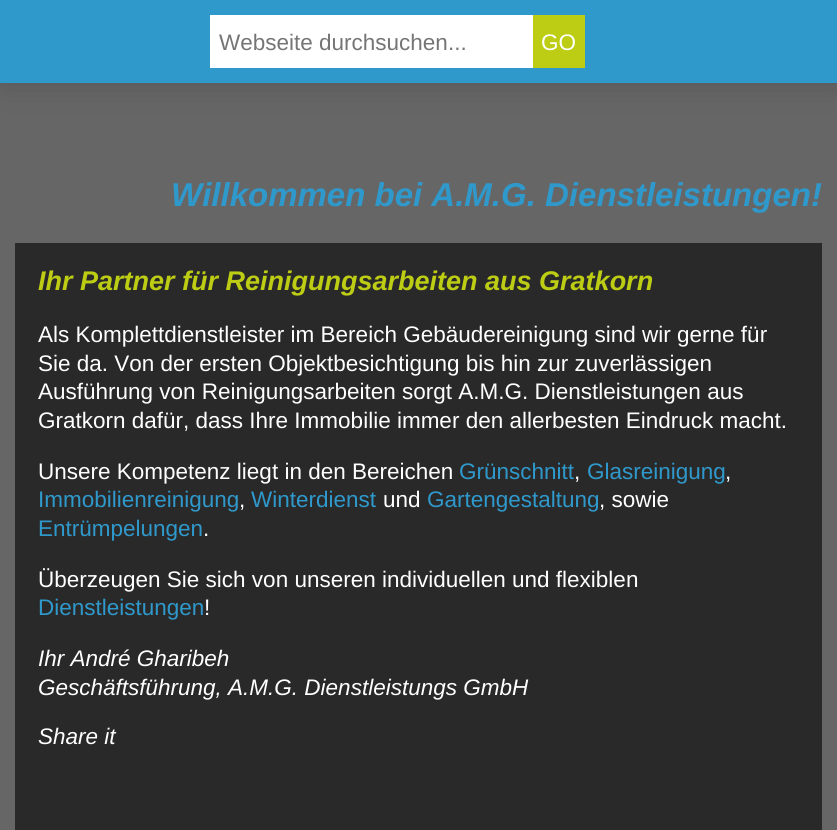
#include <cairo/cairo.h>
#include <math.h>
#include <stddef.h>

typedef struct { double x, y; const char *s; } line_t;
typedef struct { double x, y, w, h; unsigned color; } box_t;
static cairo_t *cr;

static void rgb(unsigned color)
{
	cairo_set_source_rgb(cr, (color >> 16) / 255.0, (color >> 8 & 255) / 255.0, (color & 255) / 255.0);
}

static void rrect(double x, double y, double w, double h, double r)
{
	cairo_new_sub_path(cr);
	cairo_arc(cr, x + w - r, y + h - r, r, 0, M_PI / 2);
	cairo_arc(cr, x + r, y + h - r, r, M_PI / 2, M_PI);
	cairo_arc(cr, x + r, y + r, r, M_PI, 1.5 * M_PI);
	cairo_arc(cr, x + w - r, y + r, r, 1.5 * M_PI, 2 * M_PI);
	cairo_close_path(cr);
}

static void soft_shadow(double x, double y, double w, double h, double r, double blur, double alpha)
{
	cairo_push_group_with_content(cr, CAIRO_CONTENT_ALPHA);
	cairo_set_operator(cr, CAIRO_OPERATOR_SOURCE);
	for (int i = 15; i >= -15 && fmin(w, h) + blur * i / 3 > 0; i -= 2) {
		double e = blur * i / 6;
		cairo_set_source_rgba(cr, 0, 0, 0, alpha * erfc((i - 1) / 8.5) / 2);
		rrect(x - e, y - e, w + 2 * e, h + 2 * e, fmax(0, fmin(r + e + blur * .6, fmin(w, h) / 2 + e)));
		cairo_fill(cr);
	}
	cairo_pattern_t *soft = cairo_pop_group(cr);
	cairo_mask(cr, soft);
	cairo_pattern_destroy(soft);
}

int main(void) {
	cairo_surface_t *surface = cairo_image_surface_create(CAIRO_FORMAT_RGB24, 837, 830);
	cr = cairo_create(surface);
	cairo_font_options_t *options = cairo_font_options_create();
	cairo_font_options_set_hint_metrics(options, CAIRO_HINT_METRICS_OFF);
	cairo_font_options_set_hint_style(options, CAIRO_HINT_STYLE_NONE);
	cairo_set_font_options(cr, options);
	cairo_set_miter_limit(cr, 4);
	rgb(0x666666);
	cairo_paint(cr);
	rgb(0x000000);
	soft_shadow(2, 0, 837, 83, 0, 17, 0.17);
	{
		static const box_t items[] = {
			{0, 0, 837, 83, 0x2f99cc},
			{210, 15, 323, 53, 0xffffff},
			{533, 15, 52, 53, 0xbdcd14},
			{15, 243, 807, 587, 0x292929},
		};
		for (size_t i = 0; i < sizeof items / sizeof *items; i++) {
			rgb(items[i].color);
			cairo_rectangle(cr, items[i].x, items[i].y, items[i].w, items[i].h);
			cairo_fill(cr);
		}
	}
	cairo_select_font_face(cr, "Liberation Sans", CAIRO_FONT_SLANT_NORMAL, CAIRO_FONT_WEIGHT_NORMAL);
	cairo_set_font_size(cr, 22.5);
	rgb(0x757575);
	cairo_move_to(cr, 219, 50);
	cairo_show_text(cr, "Webseite durchsuchen...");
	rgb(0xffffff);
	cairo_move_to(cr, 541, 50);
	cairo_show_text(cr, "GO");
	cairo_select_font_face(cr, "Liberation Sans", CAIRO_FONT_SLANT_ITALIC, CAIRO_FONT_WEIGHT_BOLD);
	cairo_set_font_size(cr, 33);
	rgb(0x2f99cc);
	cairo_move_to(cr, 171, 206);
	cairo_show_text(cr, "Willkommen bei A.M.G. Dienstleistungen!");
	cairo_set_font_size(cr, 27);
	rgb(0xbdcd14);
	cairo_move_to(cr, 38, 290);
	cairo_show_text(cr, "Ihr Partner für Reinigungsarbeiten aus Gratkorn");
	cairo_select_font_face(cr, "Liberation Sans", CAIRO_FONT_SLANT_NORMAL, CAIRO_FONT_WEIGHT_NORMAL);
	cairo_set_font_size(cr, 22.5);
	rgb(0xffffff);
	{
		static const line_t items[] = {
			{38, 342, "Als Komplettdienstleister im Bereich Gebäudereinigung sind wir gerne für"},
			{38, 371, "Sie da. Von der ersten Objektbesichtigung bis hin zur zuverlässigen"},
			{38, 399, "Ausführung von Reinigungsarbeiten sorgt A.M.G. Dienstleistungen aus"},
			{38, 428, "Gratkorn dafür, dass Ihre Immobilie immer den allerbesten Eindruck macht."},
			{38, 479, "Unsere Kompetenz liegt in den Bereichen"},
		};
		for (size_t i = 0; i < sizeof items / sizeof *items; i++) {
			cairo_move_to(cr, items[i].x, items[i].y);
			cairo_show_text(cr, items[i].s);
		}
	}
	rgb(0x2f99cc);
	cairo_move_to(cr, 459, 479);
	cairo_show_text(cr, "Grünschnitt");
	rgb(0xffffff);
	cairo_move_to(cr, 574, 479);
	cairo_show_text(cr, ",");
	rgb(0x2f99cc);
	cairo_move_to(cr, 587, 479);
	cairo_show_text(cr, "Glasreinigung");
	rgb(0xffffff);
	cairo_move_to(cr, 725, 479);
	cairo_show_text(cr, ",");
	rgb(0x2f99cc);
	cairo_move_to(cr, 38, 507);
	cairo_show_text(cr, "Immobilienreinigung");
	rgb(0xffffff);
	cairo_move_to(cr, 239, 507);
	cairo_show_text(cr, ",");
	rgb(0x2f99cc);
	cairo_move_to(cr, 251, 507);
	cairo_show_text(cr, "Winterdienst");
	rgb(0xffffff);
	cairo_move_to(cr, 383, 507);
	cairo_show_text(cr, "und");
	rgb(0x2f99cc);
	cairo_move_to(cr, 427, 507);
	cairo_show_text(cr, "Gartengestaltung");
	rgb(0xffffff);
	cairo_move_to(cr, 599, 507);
	cairo_show_text(cr, ", sowie");
	rgb(0x2f99cc);
	cairo_move_to(cr, 38, 536);
	cairo_show_text(cr, "Entrümpelungen");
	rgb(0xffffff);
	cairo_move_to(cr, 203, 536);
	cairo_show_text(cr, ".");
	cairo_move_to(cr, 38, 587);
	cairo_show_text(cr, "Überzeugen Sie sich von unseren individuellen und flexiblen");
	rgb(0x2f99cc);
	cairo_move_to(cr, 38, 615);
	cairo_show_text(cr, "Dienstleistungen");
	rgb(0xffffff);
	cairo_move_to(cr, 204, 615);
	cairo_show_text(cr, "!");
	cairo_select_font_face(cr, "Liberation Sans", CAIRO_FONT_SLANT_ITALIC, CAIRO_FONT_WEIGHT_NORMAL);
	{
		static const line_t items[] = {
			{38, 666, "Ihr André Gharibeh"},
			{38, 695, "Geschäftsführung, A.M.G. Dienstleistungs GmbH"},
			{38, 744, "Share it"},
		};
		for (size_t i = 0; i < sizeof items / sizeof *items; i++) {
			cairo_move_to(cr, items[i].x, items[i].y);
			cairo_show_text(cr, items[i].s);
		}
	}
	cairo_surface_write_to_png(surface, "page.png");
	cairo_font_options_destroy(options);
	cairo_destroy(cr);
	cairo_surface_destroy(surface);
	return 0;
}
